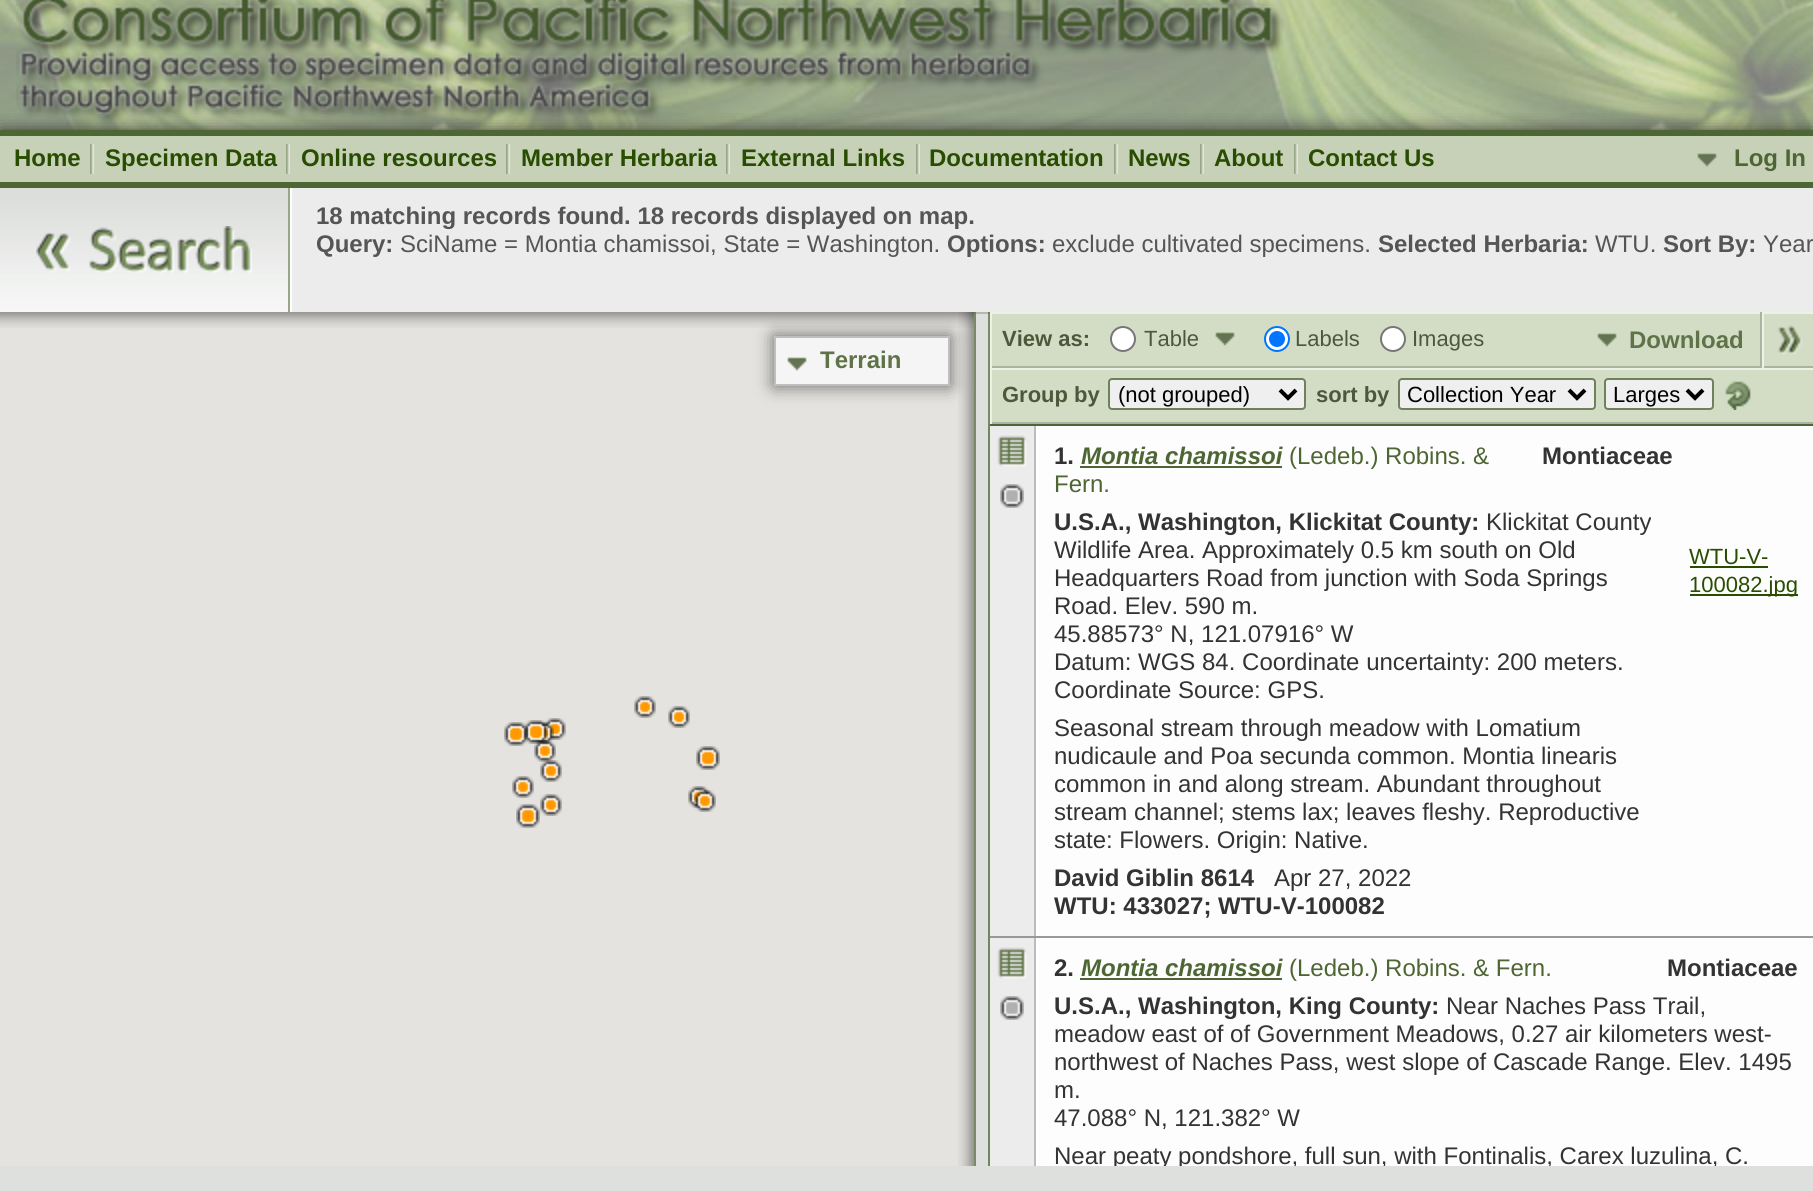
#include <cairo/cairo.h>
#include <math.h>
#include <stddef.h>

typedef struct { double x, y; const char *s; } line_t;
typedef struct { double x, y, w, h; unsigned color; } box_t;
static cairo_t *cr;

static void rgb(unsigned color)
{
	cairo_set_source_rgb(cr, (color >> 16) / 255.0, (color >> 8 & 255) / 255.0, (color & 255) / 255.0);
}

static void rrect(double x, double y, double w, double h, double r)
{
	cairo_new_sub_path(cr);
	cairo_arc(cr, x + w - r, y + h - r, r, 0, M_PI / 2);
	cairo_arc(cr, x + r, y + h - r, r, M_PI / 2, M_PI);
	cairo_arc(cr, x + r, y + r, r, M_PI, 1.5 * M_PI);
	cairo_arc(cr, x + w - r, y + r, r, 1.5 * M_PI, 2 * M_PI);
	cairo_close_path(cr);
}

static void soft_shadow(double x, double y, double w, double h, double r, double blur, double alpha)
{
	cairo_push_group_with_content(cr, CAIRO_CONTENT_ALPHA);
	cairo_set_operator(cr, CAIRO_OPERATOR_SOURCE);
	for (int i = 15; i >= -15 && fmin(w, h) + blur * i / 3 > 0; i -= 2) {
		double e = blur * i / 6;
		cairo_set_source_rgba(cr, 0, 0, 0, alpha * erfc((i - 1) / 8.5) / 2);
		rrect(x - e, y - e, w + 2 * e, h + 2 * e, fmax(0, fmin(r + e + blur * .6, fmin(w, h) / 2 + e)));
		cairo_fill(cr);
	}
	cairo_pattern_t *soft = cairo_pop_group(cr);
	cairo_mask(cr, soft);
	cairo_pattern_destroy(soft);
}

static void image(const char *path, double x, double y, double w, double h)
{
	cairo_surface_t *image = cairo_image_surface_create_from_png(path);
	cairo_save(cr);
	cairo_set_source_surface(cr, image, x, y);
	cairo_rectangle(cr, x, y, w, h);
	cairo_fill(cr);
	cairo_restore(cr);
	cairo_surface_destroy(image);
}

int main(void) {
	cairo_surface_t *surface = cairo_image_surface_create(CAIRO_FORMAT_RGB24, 1813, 1191);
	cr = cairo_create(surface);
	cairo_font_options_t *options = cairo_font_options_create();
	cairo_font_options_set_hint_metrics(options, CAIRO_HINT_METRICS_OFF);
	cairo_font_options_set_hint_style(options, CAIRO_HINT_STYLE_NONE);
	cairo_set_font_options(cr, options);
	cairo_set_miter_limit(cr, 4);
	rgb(0xdee0de);
	cairo_paint(cr);
	rgb(0x798b66);
	cairo_rectangle(cr, 974, 312, 2, 854);
	cairo_fill(cr);
	cairo_rectangle(cr, 988, 312, 2, 112);
	cairo_fill(cr);
	image("img/1.png", 0, 0, 1813, 130);
	image("img/2.png", 16, 0, 1268, 125);
	rgb(0x333333);
	soft_shadow(0, 130, 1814, 58, 0, 9, 1);
	{
		static const box_t items[] = {
			{0, 136, 1813, 46, 0xc7d1b8},
			{0, 130, 1813, 6, 0x4d6633},
			{0, 182, 1813, 6, 0x4d6633},
		};
		for (size_t i = 0; i < sizeof items / sizeof *items; i++) {
			rgb(items[i].color);
			cairo_rectangle(cr, items[i].x, items[i].y, items[i].w, items[i].h);
			cairo_fill(cr);
		}
	}
	image("img/3.png", 90, 144, 4, 30);
	image("img/3.png", 286, 144, 4, 30);
	image("img/3.png", 506, 144, 4, 30);
	image("img/3.png", 726, 144, 4, 30);
	image("img/3.png", 916, 144, 4, 30);
	image("img/3.png", 1114, 144, 4, 30);
	image("img/3.png", 1200, 144, 4, 30);
	image("img/3.png", 1294, 144, 4, 30);
	image("img/4.png", 1697, 153, 20, 14);
	{
		static const box_t items[] = {
			{292, 188, 1521, 124, 0xebeceb},
			{974, 312, 16, 2, 0xb2bbab},
			{974, 312, 2, 2, 0x6b8057},
			{988, 312, 2, 2, 0x6b8057},
		};
		for (size_t i = 0; i < sizeof items / sizeof *items; i++) {
			rgb(items[i].color);
			cairo_rectangle(cr, items[i].x, items[i].y, items[i].w, items[i].h);
			cairo_fill(cr);
		}
	}
	image("img/5.png", 0, 188, 288, 124);
	rgb(0xffffff);
	cairo_rectangle(cr, 290, 188, 2, 124);
	cairo_fill(cr);
	image("img/6.png", 36, 226, 216, 48);
	rgb(0x98a685);
	cairo_rectangle(cr, 288, 188, 2, 124);
	cairo_fill(cr);
	rgb(0xe5e3df);
	cairo_rectangle(cr, 0, 312, 974, 854);
	cairo_fill(cr);
	image("img/9.png", 544, 718, 22, 22);
	image("img/10.png", 532, 722, 22, 22);
	image("img/8.png", 524, 720, 24, 24);
	image("img/7.png", 504, 722, 24, 24);
	image("img/9.png", 634, 696, 22, 22);
	image("img/9.png", 668, 706, 22, 22);
	image("img/11.png", 534, 740, 22, 22);
	image("img/12.png", 696, 746, 24, 24);
	image("img/13.png", 540, 760, 22, 22);
	image("img/9.png", 512, 776, 22, 22);
	image("img/9.png", 688, 786, 22, 22);
	image("img/12.png", 516, 804, 24, 24);
	image("img/9.png", 540, 794, 22, 22);
	image("img/14.png", 694, 790, 22, 22);
	image("img/15.png", 0, 312, 974, 16);
	image("img/17.png", 958, 312, 16, 854);
	rgb(0x666666);
	soft_shadow(774, 336, 176, 50, 0, 9, 1);
	rgb(0xf5f5f5);
	cairo_rectangle(cr, 776, 338, 172, 46);
	cairo_fill(cr);
	image("img/16.png", 787, 357, 20, 14);
	cairo_rectangle(cr, 775, 337, 174, 48);
	rgb(0xbfbfbf);
	cairo_stroke(cr);
	{
		static const box_t items[] = {
			{992, 314, 768, 52, 0xd3ddc6},
			{990, 312, 770, 2, 0xedf2e6},
			{990, 366, 770, 2, 0xabb3a1},
			{990, 312, 2, 56, 0xedf2e6},
		};
		for (size_t i = 0; i < sizeof items / sizeof *items; i++) {
			rgb(items[i].color);
			cairo_rectangle(cr, items[i].x, items[i].y, items[i].w, items[i].h);
			cairo_fill(cr);
		}
	}
	rgb(0xffffff);
	cairo_arc(cr, 1123, 339, 12, 0, 2 * M_PI);
	cairo_fill_preserve(cr);
	rgb(0x767676);
	cairo_stroke(cr);
	image("img/18.png", 1215, 332, 20, 14);
	rgb(0xffffff);
	cairo_arc(cr, 1277, 339, 12, 0, 2 * M_PI);
	cairo_fill_preserve(cr);
	rgb(0x0075ff);
	cairo_stroke(cr);
	cairo_arc(cr, 1277, 339, 8, 0, 2 * M_PI);
	cairo_fill(cr);
	rgb(0xffffff);
	cairo_arc(cr, 1393, 339, 12, 0, 2 * M_PI);
	cairo_fill_preserve(cr);
	rgb(0x767676);
	cairo_stroke(cr);
	image("img/18.png", 1597, 333, 20, 14);
	{
		static const box_t items[] = {
			{992, 370, 821, 52, 0xd3ddc6},
			{990, 368, 823, 2, 0xedf2e6},
			{990, 422, 823, 2, 0xabb3a1},
			{990, 368, 2, 56, 0xedf2e6},
		};
		for (size_t i = 0; i < sizeof items / sizeof *items; i++) {
			rgb(items[i].color);
			cairo_rectangle(cr, items[i].x, items[i].y, items[i].w, items[i].h);
			cairo_fill(cr);
		}
	}
	rgb(0xefefef);
	rrect(1109, 379, 196, 30, 3);
	cairo_fill_preserve(cr);
	rgb(0x6f805c);
	cairo_stroke(cr);
	cairo_new_path(cr);
	cairo_move_to(cr, 1280, 390);
	cairo_line_to(cr, 1288, 398);
	cairo_line_to(cr, 1296, 390);
	rgb(0x000000);
	cairo_set_line_width(cr, 4);
	cairo_stroke(cr);
	rgb(0xefefef);
	rrect(1399, 379, 196, 30, 3);
	cairo_fill_preserve(cr);
	rgb(0x6f805c);
	cairo_set_line_width(cr, 2);
	cairo_stroke(cr);
	cairo_new_path(cr);
	cairo_move_to(cr, 1569, 390);
	cairo_line_to(cr, 1577, 398);
	cairo_line_to(cr, 1585, 390);
	rgb(0x000000);
	cairo_set_line_width(cr, 4);
	cairo_stroke(cr);
	rgb(0xefefef);
	rrect(1605, 379, 108, 30, 3);
	cairo_fill_preserve(cr);
	rgb(0x6f805c);
	cairo_set_line_width(cr, 2);
	cairo_stroke(cr);
	cairo_new_path(cr);
	cairo_move_to(cr, 1687, 390);
	cairo_line_to(cr, 1695, 398);
	cairo_line_to(cr, 1703, 390);
	rgb(0x000000);
	cairo_set_line_width(cr, 4);
	cairo_stroke(cr);
	image("img/19.png", 1725, 381, 26, 29);
	rgb(0xd3ddc6);
	cairo_rectangle(cr, 1764, 314, 49, 52);
	cairo_fill(cr);
	rgb(0xabb3a1);
	cairo_rectangle(cr, 1760, 312, 2, 56);
	cairo_fill(cr);
	image("img/20.png", 1777, 325, 26, 30);
	{
		static const box_t items[] = {
			{1762, 312, 51, 2, 0xedf2e6},
			{1762, 366, 51, 2, 0xabb3a1},
			{1762, 312, 2, 56, 0xedf2e6},
			{988, 424, 825, 2, 0x4d6633},
			{988, 424, 2, 742, 0x728460},
			{1038, 426, 775, 510, 0xfdfdfd},
			{990, 936, 823, 2, 0x999999},
			{990, 426, 44, 510, 0xebeceb},
			{1034, 426, 2, 510, 0xbbbbbb},
		};
		for (size_t i = 0; i < sizeof items / sizeof *items; i++) {
			rgb(items[i].color);
			cairo_rectangle(cr, items[i].x, items[i].y, items[i].w, items[i].h);
			cairo_fill(cr);
		}
	}
	image("img/21.png", 997, 435, 30, 32);
	image("img/22.png", 1000, 484, 24, 24);
	{
		static const box_t items[] = {
			{1036, 426, 2, 510, 0xffffff},
			{1080, 466, 202, 2, 0x4d6633},
			{1690, 566, 78, 2, 0x284d00},
			{1690, 594, 108, 2, 0x284d00},
			{1038, 938, 775, 228, 0xfdfdfd},
			{990, 938, 44, 228, 0xebeceb},
			{1034, 938, 2, 228, 0xbbbbbb},
		};
		for (size_t i = 0; i < sizeof items / sizeof *items; i++) {
			rgb(items[i].color);
			cairo_rectangle(cr, items[i].x, items[i].y, items[i].w, items[i].h);
			cairo_fill(cr);
		}
	}
	image("img/21.png", 997, 947, 30, 32);
	image("img/22.png", 1000, 996, 24, 24);
	rgb(0xffffff);
	cairo_rectangle(cr, 1036, 938, 2, 228);
	cairo_fill(cr);
	rgb(0x4d6633);
	cairo_rectangle(cr, 1080, 978, 202, 2);
	cairo_fill(cr);
	cairo_select_font_face(cr, "Liberation Sans", CAIRO_FONT_SLANT_NORMAL, CAIRO_FONT_WEIGHT_BOLD);
	cairo_set_font_size(cr, 24);
	rgb(0x284d00);
	{
		static const line_t items[] = {
			{14, 166, "Home"},
			{105, 166, "Specimen Data"},
			{301, 166, "Online resources"},
			{521, 166, "Member Herbaria"},
			{741, 166, "External Links"},
			{929, 166, "Documentation"},
			{1128, 166, "News"},
			{1214, 166, "About"},
			{1308, 166, "Contact Us"},
		};
		for (size_t i = 0; i < sizeof items / sizeof *items; i++) {
			cairo_move_to(cr, items[i].x, items[i].y);
			cairo_show_text(cr, items[i].s);
		}
	}
	rgb(0x4d6633);
	cairo_move_to(cr, 1734, 166);
	cairo_show_text(cr, "Log In");
	rgb(0x555555);
	cairo_move_to(cr, 316, 224);
	cairo_show_text(cr, "18 matching records found. 18 records displayed on map.");
	cairo_move_to(cr, 316, 252);
	cairo_show_text(cr, "Query:");
	cairo_select_font_face(cr, "Liberation Sans", CAIRO_FONT_SLANT_NORMAL, CAIRO_FONT_WEIGHT_NORMAL);
	cairo_move_to(cr, 400, 252);
	cairo_show_text(cr, "SciName = Montia chamissoi, State = Washington.");
	cairo_select_font_face(cr, "Liberation Sans", CAIRO_FONT_SLANT_NORMAL, CAIRO_FONT_WEIGHT_BOLD);
	cairo_move_to(cr, 947, 252);
	cairo_show_text(cr, "Options:");
	cairo_select_font_face(cr, "Liberation Sans", CAIRO_FONT_SLANT_NORMAL, CAIRO_FONT_WEIGHT_NORMAL);
	cairo_move_to(cr, 1052, 252);
	cairo_show_text(cr, "exclude cultivated specimens.");
	cairo_select_font_face(cr, "Liberation Sans", CAIRO_FONT_SLANT_NORMAL, CAIRO_FONT_WEIGHT_BOLD);
	cairo_move_to(cr, 1378, 252);
	cairo_show_text(cr, "Selected Herbaria:");
	cairo_select_font_face(cr, "Liberation Sans", CAIRO_FONT_SLANT_NORMAL, CAIRO_FONT_WEIGHT_NORMAL);
	cairo_move_to(cr, 1595, 252);
	cairo_show_text(cr, "WTU.");
	cairo_select_font_face(cr, "Liberation Sans", CAIRO_FONT_SLANT_NORMAL, CAIRO_FONT_WEIGHT_BOLD);
	cairo_move_to(cr, 1663, 252);
	cairo_show_text(cr, "Sort By:");
	cairo_select_font_face(cr, "Liberation Sans", CAIRO_FONT_SLANT_NORMAL, CAIRO_FONT_WEIGHT_NORMAL);
	cairo_move_to(cr, 1763, 252);
	cairo_show_text(cr, "Year");
	cairo_select_font_face(cr, "Liberation Sans", CAIRO_FONT_SLANT_NORMAL, CAIRO_FONT_WEIGHT_BOLD);
	rgb(0x607348);
	cairo_move_to(cr, 820, 368);
	cairo_show_text(cr, "Terrain");
	cairo_set_font_size(cr, 22);
	rgb(0x4b593b);
	cairo_move_to(cr, 1002, 346);
	cairo_show_text(cr, "View as:");
	cairo_select_font_face(cr, "Liberation Sans", CAIRO_FONT_SLANT_NORMAL, CAIRO_FONT_WEIGHT_NORMAL);
	{
		static const line_t items[] = {
			{1144, 346, "Table"},
			{1295, 346, "Labels"},
			{1412, 346, "Images"},
		};
		for (size_t i = 0; i < sizeof items / sizeof *items; i++) {
			cairo_move_to(cr, items[i].x, items[i].y);
			cairo_show_text(cr, items[i].s);
		}
	}
	cairo_select_font_face(cr, "Liberation Sans", CAIRO_FONT_SLANT_NORMAL, CAIRO_FONT_WEIGHT_BOLD);
	cairo_set_font_size(cr, 24);
	rgb(0x607348);
	cairo_move_to(cr, 1629, 348);
	cairo_show_text(cr, "Download");
	cairo_set_font_size(cr, 22);
	rgb(0x4b593b);
	cairo_move_to(cr, 1002, 402);
	cairo_show_text(cr, "Group by");
	cairo_select_font_face(cr, "Liberation Sans", CAIRO_FONT_SLANT_NORMAL, CAIRO_FONT_WEIGHT_NORMAL);
	rgb(0x000000);
	cairo_move_to(cr, 1118, 402);
	cairo_show_text(cr, "(not grouped)");
	cairo_select_font_face(cr, "Liberation Sans", CAIRO_FONT_SLANT_NORMAL, CAIRO_FONT_WEIGHT_BOLD);
	rgb(0x4b593b);
	cairo_move_to(cr, 1316, 402);
	cairo_show_text(cr, "sort by");
	cairo_select_font_face(cr, "Liberation Sans", CAIRO_FONT_SLANT_NORMAL, CAIRO_FONT_WEIGHT_NORMAL);
	rgb(0x000000);
	cairo_move_to(cr, 1407, 402);
	cairo_show_text(cr, "Collection Year");
	cairo_move_to(cr, 1613, 402);
	cairo_show_text(cr, "Larges");
	cairo_select_font_face(cr, "Liberation Sans", CAIRO_FONT_SLANT_NORMAL, CAIRO_FONT_WEIGHT_BOLD);
	cairo_set_font_size(cr, 24);
	rgb(0x333333);
	cairo_move_to(cr, 1054, 464);
	cairo_show_text(cr, "1.");
	cairo_select_font_face(cr, "Liberation Sans", CAIRO_FONT_SLANT_ITALIC, CAIRO_FONT_WEIGHT_BOLD);
	rgb(0x4d6633);
	cairo_move_to(cr, 1081, 464);
	cairo_show_text(cr, "Montia chamissoi");
	cairo_select_font_face(cr, "Liberation Sans", CAIRO_FONT_SLANT_NORMAL, CAIRO_FONT_WEIGHT_NORMAL);
	cairo_move_to(cr, 1289, 464);
	cairo_show_text(cr, "(Ledeb.) Robins. &");
	cairo_select_font_face(cr, "Liberation Sans", CAIRO_FONT_SLANT_NORMAL, CAIRO_FONT_WEIGHT_BOLD);
	rgb(0x333333);
	cairo_move_to(cr, 1542, 464);
	cairo_show_text(cr, "Montiaceae");
	cairo_select_font_face(cr, "Liberation Sans", CAIRO_FONT_SLANT_NORMAL, CAIRO_FONT_WEIGHT_NORMAL);
	rgb(0x4d6633);
	cairo_move_to(cr, 1054, 492);
	cairo_show_text(cr, "Fern.");
	cairo_select_font_face(cr, "Liberation Sans", CAIRO_FONT_SLANT_NORMAL, CAIRO_FONT_WEIGHT_BOLD);
	rgb(0x333333);
	cairo_move_to(cr, 1054, 530);
	cairo_show_text(cr, "U.S.A., Washington, Klickitat County:");
	cairo_select_font_face(cr, "Liberation Sans", CAIRO_FONT_SLANT_NORMAL, CAIRO_FONT_WEIGHT_NORMAL);
	{
		static const line_t items[] = {
			{1486, 530, "Klickitat County"},
			{1054, 558, "Wildlife Area. Approximately 0.5 km south on Old"},
			{1054, 586, "Headquarters Road from junction with Soda Springs"},
			{1054, 614, "Road. Elev. 590 m."},
			{1054, 642, "45.88573° N, 121.07916° W"},
			{1054, 670, "Datum: WGS 84. Coordinate uncertainty: 200 meters."},
			{1054, 698, "Coordinate Source: GPS."},
			{1054, 736, "Seasonal stream through meadow with Lomatium"},
			{1054, 764, "nudicaule and Poa secunda common. Montia linearis"},
			{1054, 792, "common in and along stream. Abundant throughout"},
			{1054, 820, "stream channel; stems lax; leaves fleshy. Reproductive"},
			{1054, 848, "state: Flowers. Origin: Native."},
		};
		for (size_t i = 0; i < sizeof items / sizeof *items; i++) {
			cairo_move_to(cr, items[i].x, items[i].y);
			cairo_show_text(cr, items[i].s);
		}
	}
	cairo_select_font_face(cr, "Liberation Sans", CAIRO_FONT_SLANT_NORMAL, CAIRO_FONT_WEIGHT_BOLD);
	cairo_move_to(cr, 1054, 886);
	cairo_show_text(cr, "David Giblin 8614");
	cairo_select_font_face(cr, "Liberation Sans", CAIRO_FONT_SLANT_NORMAL, CAIRO_FONT_WEIGHT_NORMAL);
	cairo_move_to(cr, 1274, 886);
	cairo_show_text(cr, "Apr 27, 2022");
	cairo_select_font_face(cr, "Liberation Sans", CAIRO_FONT_SLANT_NORMAL, CAIRO_FONT_WEIGHT_BOLD);
	cairo_move_to(cr, 1054, 914);
	cairo_show_text(cr, "WTU: 433027; WTU-V-100082");
	cairo_select_font_face(cr, "Liberation Sans", CAIRO_FONT_SLANT_NORMAL, CAIRO_FONT_WEIGHT_NORMAL);
	cairo_set_font_size(cr, 22);
	rgb(0x284d00);
	cairo_move_to(cr, 1689, 564);
	cairo_show_text(cr, "WTU-V-");
	cairo_move_to(cr, 1689, 592);
	cairo_show_text(cr, "100082.jpg");
	cairo_select_font_face(cr, "Liberation Sans", CAIRO_FONT_SLANT_NORMAL, CAIRO_FONT_WEIGHT_BOLD);
	cairo_set_font_size(cr, 24);
	rgb(0x333333);
	cairo_move_to(cr, 1054, 976);
	cairo_show_text(cr, "2.");
	cairo_select_font_face(cr, "Liberation Sans", CAIRO_FONT_SLANT_ITALIC, CAIRO_FONT_WEIGHT_BOLD);
	rgb(0x4d6633);
	cairo_move_to(cr, 1081, 976);
	cairo_show_text(cr, "Montia chamissoi");
	cairo_select_font_face(cr, "Liberation Sans", CAIRO_FONT_SLANT_NORMAL, CAIRO_FONT_WEIGHT_NORMAL);
	cairo_move_to(cr, 1289, 976);
	cairo_show_text(cr, "(Ledeb.) Robins. & Fern.");
	cairo_select_font_face(cr, "Liberation Sans", CAIRO_FONT_SLANT_NORMAL, CAIRO_FONT_WEIGHT_BOLD);
	rgb(0x333333);
	cairo_move_to(cr, 1667, 976);
	cairo_show_text(cr, "Montiaceae");
	cairo_move_to(cr, 1054, 1014);
	cairo_show_text(cr, "U.S.A., Washington, King County:");
	cairo_select_font_face(cr, "Liberation Sans", CAIRO_FONT_SLANT_NORMAL, CAIRO_FONT_WEIGHT_NORMAL);
	{
		static const line_t items[] = {
			{1446, 1014, "Near Naches Pass Trail,"},
			{1054, 1042, "meadow east of of Government Meadows, 0.27 air kilometers west-"},
			{1054, 1070, "northwest of Naches Pass, west slope of Cascade Range. Elev. 1495"},
			{1054, 1098, "m."},
			{1054, 1126, "47.088° N, 121.382° W"},
		};
		for (size_t i = 0; i < sizeof items / sizeof *items; i++) {
			cairo_move_to(cr, items[i].x, items[i].y);
			cairo_show_text(cr, items[i].s);
		}
	}
	cairo_save(cr);
	cairo_rectangle(cr, 990, 426, 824, 740);
	cairo_clip(cr);
	cairo_move_to(cr, 1054, 1164);
	cairo_show_text(cr, "Near peaty pondshore, full sun, with Fontinalis, Carex luzulina, C.");
	cairo_restore(cr);
	cairo_surface_write_to_png(surface, "page.png");
	cairo_font_options_destroy(options);
	cairo_destroy(cr);
	cairo_surface_destroy(surface);
	return 0;
}
